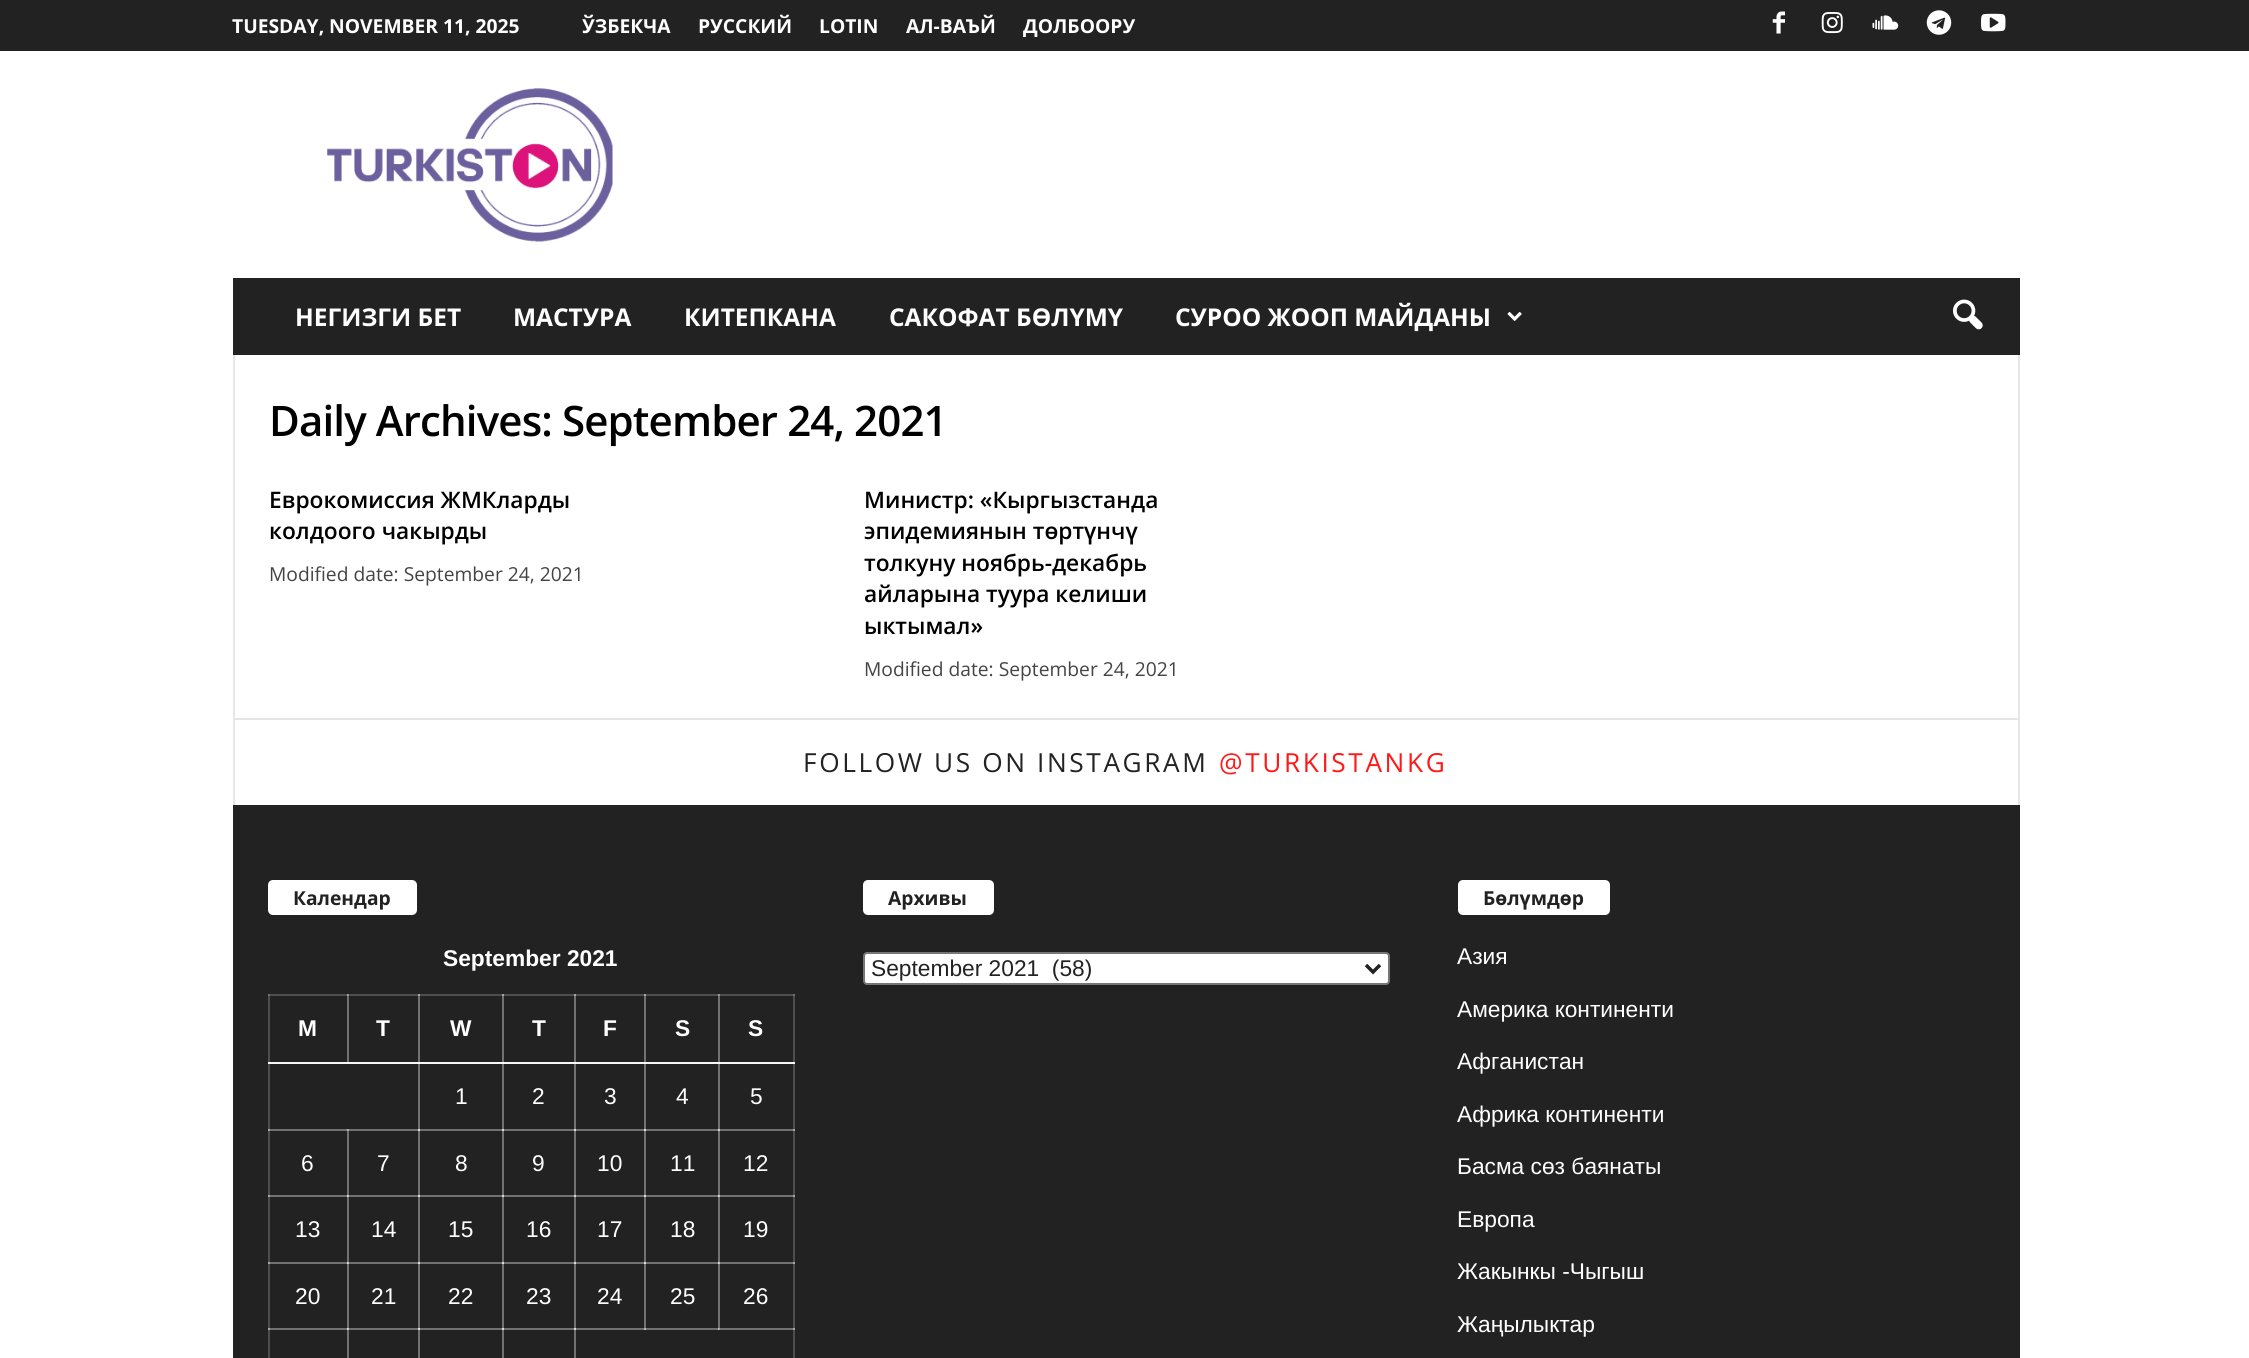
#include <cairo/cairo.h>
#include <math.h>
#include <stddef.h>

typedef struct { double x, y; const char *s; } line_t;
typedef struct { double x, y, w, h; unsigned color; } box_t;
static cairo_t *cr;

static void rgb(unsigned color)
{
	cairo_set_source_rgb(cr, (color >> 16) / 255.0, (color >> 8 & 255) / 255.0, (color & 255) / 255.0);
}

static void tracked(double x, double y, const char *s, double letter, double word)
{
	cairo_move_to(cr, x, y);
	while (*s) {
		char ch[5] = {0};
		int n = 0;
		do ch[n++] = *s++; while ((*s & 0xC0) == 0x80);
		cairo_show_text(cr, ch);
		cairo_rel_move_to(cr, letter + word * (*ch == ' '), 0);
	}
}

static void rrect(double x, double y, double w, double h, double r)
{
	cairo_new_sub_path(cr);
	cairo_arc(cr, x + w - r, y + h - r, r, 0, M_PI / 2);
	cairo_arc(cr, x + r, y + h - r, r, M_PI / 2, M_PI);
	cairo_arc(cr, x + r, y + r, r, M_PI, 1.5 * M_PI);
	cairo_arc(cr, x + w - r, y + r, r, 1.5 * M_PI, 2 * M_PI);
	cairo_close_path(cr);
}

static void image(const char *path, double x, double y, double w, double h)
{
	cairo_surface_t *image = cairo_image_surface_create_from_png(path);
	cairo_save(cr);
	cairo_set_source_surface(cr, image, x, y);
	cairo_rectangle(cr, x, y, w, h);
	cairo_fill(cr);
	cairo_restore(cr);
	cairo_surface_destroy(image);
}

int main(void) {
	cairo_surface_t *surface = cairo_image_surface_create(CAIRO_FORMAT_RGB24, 2249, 1358);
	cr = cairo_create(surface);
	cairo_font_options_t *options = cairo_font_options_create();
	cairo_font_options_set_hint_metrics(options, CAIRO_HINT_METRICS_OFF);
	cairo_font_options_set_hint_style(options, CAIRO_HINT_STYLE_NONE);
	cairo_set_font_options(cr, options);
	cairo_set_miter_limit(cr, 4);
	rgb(0xffffff);
	cairo_paint(cr);
	rgb(0x222222);
	cairo_rectangle(cr, 0, 0, 2249, 51);
	cairo_fill(cr);
	image("img/1.png", 1772, 11, 13, 23);
	image("img/2.png", 1821, 12, 22, 22);
	image("img/3.png", 1872, 15, 27, 15);
	image("img/4.png", 1926, 10, 26, 25);
	image("img/5.png", 1981, 13, 25, 19);
	image("img/6.png", 327, 88, 286, 154);
	cairo_rectangle(cr, 233, 278, 1787, 77);
	cairo_fill(cr);
	image("img/7.png", 1507, 312, 15, 9);
	image("img/8.png", 1953, 299, 30, 31);
	{
		static const box_t items[] = {
			{233, 719, 2, 86, 0xe6e6e6},
			{2018, 719, 2, 86, 0xe6e6e6},
			{233, 718, 1787, 2, 0xe6e6e6},
			{233, 355, 2, 363, 0xe6e6e6},
			{2018, 355, 2, 363, 0xe6e6e6},
			{233, 805, 1787, 553, 0x222222},
			{268, 994, 2, 364, 0x4e4e4e},
			{268, 994, 80, 2, 0x4e4e4e},
			{268, 994, 2, 2, 0x717171},
			{347, 994, 2, 70, 0x717171},
			{347, 994, 73, 2, 0x4e4e4e},
			{347, 994, 2, 2, 0x8d8d8d},
			{347, 994, 1, 2, 0xa4a4a4},
			{418, 994, 2, 137, 0x717171},
			{418, 994, 86, 2, 0x4e4e4e},
			{418, 994, 2, 2, 0xa4a4a4},
			{502, 994, 2, 137, 0x717171},
			{502, 994, 74, 2, 0x4e4e4e},
			{502, 994, 2, 2, 0xa4a4a4},
			{574, 994, 2, 137, 0x717171},
			{574, 994, 72, 2, 0x4e4e4e},
			{574, 994, 2, 2, 0xa4a4a4},
			{644, 994, 2, 137, 0x717171},
			{644, 994, 75, 2, 0x4e4e4e},
			{644, 994, 2, 2, 0xa4a4a4},
			{718, 994, 2, 137, 0x717171},
			{793, 994, 2, 364, 0x4e4e4e},
			{268, 1129, 80, 2, 0x717171},
			{268, 1129, 2, 2, 0xa4a4a4},
			{347, 1129, 2, 68, 0x717171},
			{347, 1129, 73, 2, 0x717171},
			{347, 1129, 2, 2, 0xa4a4a4},
			{347, 1129, 1, 2, 0xb6b6b6},
			{418, 1129, 2, 68, 0x717171},
			{418, 1129, 86, 2, 0x717171},
			{418, 1129, 2, 2, 0xdadada},
			{502, 1129, 2, 68, 0x717171},
			{502, 1129, 74, 2, 0x717171},
			{502, 1129, 2, 2, 0xdadada},
			{574, 1129, 2, 68, 0x717171},
			{574, 1129, 72, 2, 0x717171},
			{574, 1129, 2, 2, 0xdadada},
			{644, 1129, 2, 68, 0x717171},
			{644, 1129, 75, 2, 0x717171},
			{644, 1129, 2, 2, 0xdadada},
			{718, 1129, 2, 68, 0x717171},
			{268, 1195, 80, 2, 0x717171},
			{268, 1195, 2, 2, 0xa4a4a4},
			{347, 1195, 2, 69, 0x717171},
			{347, 1195, 73, 2, 0x717171},
			{347, 1195, 2, 2, 0xc5c5c5},
			{347, 1195, 1, 2, 0xdadada},
			{418, 1195, 2, 69, 0x717171},
			{418, 1195, 86, 2, 0x717171},
			{418, 1195, 2, 2, 0xdadada},
			{502, 1195, 2, 69, 0x717171},
			{502, 1195, 74, 2, 0x717171},
			{502, 1195, 2, 2, 0xdadada},
			{574, 1195, 2, 69, 0x717171},
			{574, 1195, 72, 2, 0x717171},
			{574, 1195, 2, 2, 0xdadada},
			{644, 1195, 2, 69, 0x717171},
			{644, 1195, 75, 2, 0x717171},
			{644, 1195, 2, 2, 0xdadada},
			{718, 1195, 2, 69, 0x717171},
			{268, 1262, 80, 2, 0x717171},
			{268, 1262, 2, 2, 0xa4a4a4},
			{347, 1262, 2, 68, 0x717171},
			{347, 1262, 73, 2, 0x717171},
			{347, 1262, 2, 2, 0xc5c5c5},
			{347, 1262, 1, 2, 0xdadada},
			{418, 1262, 2, 68, 0x717171},
			{418, 1262, 86, 2, 0x717171},
			{418, 1262, 2, 2, 0xdadada},
			{502, 1262, 2, 68, 0x717171},
			{502, 1262, 74, 2, 0x717171},
			{502, 1262, 2, 2, 0xdadada},
			{574, 1262, 2, 68, 0x717171},
			{574, 1262, 72, 2, 0x717171},
			{574, 1262, 2, 2, 0xdadada},
			{644, 1262, 2, 68, 0x717171},
			{644, 1262, 75, 2, 0x717171},
			{644, 1262, 2, 2, 0xdadada},
			{718, 1262, 2, 68, 0x717171},
			{268, 1328, 80, 2, 0x717171},
			{268, 1328, 2, 2, 0xa4a4a4},
			{347, 1328, 2, 30, 0x717171},
			{347, 1328, 73, 2, 0x717171},
			{347, 1328, 2, 2, 0xc5c5c5},
			{347, 1328, 1, 2, 0xdadada},
			{418, 1328, 2, 30, 0x717171},
			{418, 1328, 86, 2, 0x717171},
			{418, 1328, 2, 2, 0xdadada},
			{502, 1328, 2, 30, 0x717171},
			{502, 1328, 74, 2, 0x717171},
			{502, 1328, 2, 2, 0xdadada},
			{574, 1328, 2, 30, 0x717171},
		};
		for (size_t i = 0; i < sizeof items / sizeof *items; i++) {
			rgb(items[i].color);
			cairo_rectangle(cr, items[i].x, items[i].y, items[i].w, items[i].h);
			cairo_fill(cr);
		}
	}
	rgb(0xffffff);
	rrect(268, 880, 149, 35, 5);
	cairo_fill(cr);
	{
		static const box_t items[] = {
			{268, 1062, 527, 2, 0xf6f6f6},
			{347, 1062, 2, 2, 0xf9f9f9},
			{268, 1062, 2, 2, 0xf9f9f9},
			{418, 1062, 2, 2, 0xfdfdfd},
			{502, 1062, 2, 2, 0xfdfdfd},
			{574, 1062, 2, 2, 0xfdfdfd},
			{644, 1062, 2, 2, 0xfdfdfd},
			{718, 994, 77, 2, 0x4e4e4e},
			{718, 994, 2, 2, 0x8d8d8d},
			{718, 994, 1, 2, 0xa4a4a4},
			{793, 994, 2, 2, 0x717171},
			{718, 1062, 2, 2, 0xfbfbfb},
			{793, 1062, 2, 2, 0xf9f9f9},
			{718, 1129, 77, 2, 0x717171},
			{718, 1129, 2, 2, 0xc5c5c5},
			{718, 1129, 1, 2, 0xdadada},
			{793, 1129, 2, 2, 0xa4a4a4},
			{718, 1195, 77, 2, 0x717171},
			{718, 1195, 2, 2, 0xc5c5c5},
			{718, 1195, 1, 2, 0xdadada},
			{793, 1195, 2, 2, 0xa4a4a4},
			{718, 1262, 77, 2, 0x717171},
			{718, 1262, 2, 2, 0xc5c5c5},
			{718, 1262, 1, 2, 0xdadada},
			{793, 1262, 2, 2, 0xa4a4a4},
			{574, 1328, 221, 2, 0x717171},
			{644, 1328, 2, 2, 0xb6b6b6},
			{718, 1328, 2, 2, 0xa4a4a4},
			{718, 1328, 1, 2, 0xb6b6b6},
			{574, 1328, 2, 2, 0xdadada},
			{793, 1328, 2, 2, 0xa4a4a4},
		};
		for (size_t i = 0; i < sizeof items / sizeof *items; i++) {
			rgb(items[i].color);
			cairo_rectangle(cr, items[i].x, items[i].y, items[i].w, items[i].h);
			cairo_fill(cr);
		}
	}
	rgb(0xffffff);
	rrect(863, 880, 131, 35, 5);
	cairo_fill(cr);
	rrect(864, 953, 525, 31, 3);
	cairo_fill_preserve(cr);
	rgb(0x767676);
	cairo_stroke(cr);
	cairo_new_path(cr);
	cairo_move_to(cr, 1366, 965);
	cairo_line_to(cr, 1373, 972);
	cairo_line_to(cr, 1380, 965);
	rgb(0x222222);
	cairo_set_line_width(cr, 3.5);
	cairo_stroke(cr);
	rgb(0xffffff);
	rrect(1458, 880, 152, 35, 5);
	cairo_fill(cr);
	cairo_select_font_face(cr, "Open Sans", CAIRO_FONT_SLANT_NORMAL, CAIRO_FONT_WEIGHT_BOLD);
	cairo_set_font_size(cr, 19.25);
	{
		static const line_t items[] = {
			{232, 33, "TUESDAY, NOVEMBER 11, 2025"},
			{582, 33, "ЎЗБЕКЧА"},
			{698, 33, "РУССКИЙ"},
			{819, 33, "LOTIN"},
			{906, 33, "АЛ-ВАЪЙ"},
			{1023, 33, "ДОЛБООРУ"},
		};
		for (size_t i = 0; i < sizeof items / sizeof *items; i++) {
			cairo_move_to(cr, items[i].x, items[i].y);
			cairo_show_text(cr, items[i].s);
		}
	}
	cairo_set_font_size(cr, 24.5);
	{
		static const line_t items[] = {
			{295, 326, "НЕГИЗГИ БЕТ"},
			{513, 326, "МАСТУРА"},
			{684, 326, "КИТЕПКАНА"},
			{889, 326, "САКОФАТ БӨЛҮМҮ"},
			{1175, 326, "СУРОО ЖООП МАЙДАНЫ"},
		};
		for (size_t i = 0; i < sizeof items / sizeof *items; i++) {
			cairo_move_to(cr, items[i].x, items[i].y);
			cairo_show_text(cr, items[i].s);
		}
	}
	cairo_select_font_face(cr, "Open Sans SemiBold", CAIRO_FONT_SLANT_NORMAL, CAIRO_FONT_WEIGHT_NORMAL);
	cairo_set_font_size(cr, 42);
	rgb(0x000000);
	tracked(269, 436, "Daily Archives: September 24, 2021", -0.85, 0);
	cairo_set_font_size(cr, 22.75);
	cairo_move_to(cr, 269, 508);
	cairo_show_text(cr, "Еврокомиссия ЖМКларды");
	cairo_move_to(cr, 269, 539);
	cairo_show_text(cr, "колдоого чакырды");
	cairo_select_font_face(cr, "Open Sans", CAIRO_FONT_SLANT_NORMAL, CAIRO_FONT_WEIGHT_NORMAL);
	cairo_set_font_size(cr, 19.25);
	rgb(0x444444);
	cairo_move_to(cr, 269, 581);
	cairo_show_text(cr, "Modified date: September 24, 2021");
	cairo_select_font_face(cr, "Open Sans SemiBold", CAIRO_FONT_SLANT_NORMAL, CAIRO_FONT_WEIGHT_NORMAL);
	cairo_set_font_size(cr, 22.75);
	rgb(0x000000);
	{
		static const line_t items[] = {
			{864, 508, "Министр: «Кыргызстанда"},
			{864, 539, "эпидемиянын төртүнчү"},
			{864, 571, "толкуну ноябрь-декабрь"},
			{864, 602, "айларына туура келиши"},
			{864, 634, "ыктымал»"},
		};
		for (size_t i = 0; i < sizeof items / sizeof *items; i++) {
			cairo_move_to(cr, items[i].x, items[i].y);
			cairo_show_text(cr, items[i].s);
		}
	}
	cairo_select_font_face(cr, "Open Sans", CAIRO_FONT_SLANT_NORMAL, CAIRO_FONT_WEIGHT_NORMAL);
	cairo_set_font_size(cr, 19.25);
	rgb(0x444444);
	cairo_move_to(cr, 864, 676);
	cairo_show_text(cr, "Modified date: September 24, 2021");
	cairo_set_font_size(cr, 26.25);
	rgb(0x222222);
	tracked(803, 772, "FOLLOW US ON INSTAGRAM", 2.6, 0);
	rgb(0xff1919);
	tracked(1219, 772, "@TURKISTANKG", 2.6, 0);
	cairo_select_font_face(cr, "Open Sans", CAIRO_FONT_SLANT_NORMAL, CAIRO_FONT_WEIGHT_BOLD);
	cairo_set_font_size(cr, 19.25);
	rgb(0x222222);
	cairo_move_to(cr, 293, 905);
	cairo_show_text(cr, "Календар");
	cairo_select_font_face(cr, "Liberation Sans", CAIRO_FONT_SLANT_NORMAL, CAIRO_FONT_WEIGHT_BOLD);
	cairo_set_font_size(cr, 22.75);
	rgb(0xffffff);
	{
		static const line_t items[] = {
			{443, 966, "September 2021"},
			{298, 1036, "M"},
			{376, 1036, "T"},
			{450, 1036, "W"},
			{532, 1036, "T"},
			{603, 1036, "F"},
			{675, 1036, "S"},
			{748, 1036, "S"},
		};
		for (size_t i = 0; i < sizeof items / sizeof *items; i++) {
			cairo_move_to(cr, items[i].x, items[i].y);
			cairo_show_text(cr, items[i].s);
		}
	}
	cairo_select_font_face(cr, "Liberation Sans", CAIRO_FONT_SLANT_NORMAL, CAIRO_FONT_WEIGHT_NORMAL);
	{
		static const line_t items[] = {
			{455, 1104, "1"},
			{532, 1104, "2"},
			{604, 1104, "3"},
			{676, 1104, "4"},
			{750, 1104, "5"},
			{301, 1171, "6"},
			{377, 1171, "7"},
			{455, 1171, "8"},
			{532, 1171, "9"},
			{597, 1171, "10"},
			{670, 1171, "11"},
			{743, 1171, "12"},
			{295, 1237, "13"},
			{371, 1237, "14"},
			{448, 1237, "15"},
			{526, 1237, "16"},
			{597, 1237, "17"},
			{670, 1237, "18"},
			{743, 1237, "19"},
			{295, 1304, "20"},
			{371, 1304, "21"},
			{448, 1304, "22"},
			{526, 1304, "23"},
			{597, 1304, "24"},
			{670, 1304, "25"},
			{743, 1304, "26"},
		};
		for (size_t i = 0; i < sizeof items / sizeof *items; i++) {
			cairo_move_to(cr, items[i].x, items[i].y);
			cairo_show_text(cr, items[i].s);
		}
	}
	cairo_select_font_face(cr, "Open Sans", CAIRO_FONT_SLANT_NORMAL, CAIRO_FONT_WEIGHT_BOLD);
	cairo_set_font_size(cr, 19.25);
	rgb(0x222222);
	cairo_move_to(cr, 888, 905);
	cairo_show_text(cr, "Архивы");
	cairo_select_font_face(cr, "Liberation Sans", CAIRO_FONT_SLANT_NORMAL, CAIRO_FONT_WEIGHT_NORMAL);
	cairo_set_font_size(cr, 22.75);
	cairo_move_to(cr, 871, 976);
	cairo_show_text(cr, "September 2021  (58)");
	cairo_select_font_face(cr, "Open Sans", CAIRO_FONT_SLANT_NORMAL, CAIRO_FONT_WEIGHT_BOLD);
	cairo_set_font_size(cr, 19.25);
	cairo_move_to(cr, 1483, 905);
	cairo_show_text(cr, "Бөлүмдөр");
	cairo_select_font_face(cr, "Liberation Sans", CAIRO_FONT_SLANT_NORMAL, CAIRO_FONT_WEIGHT_NORMAL);
	cairo_set_font_size(cr, 22.75);
	rgb(0xffffff);
	{
		static const line_t items[] = {
			{1457, 964, "Азия"},
			{1457, 1017, "Америка континенти"},
			{1457, 1069, "Афганистан"},
			{1457, 1122, "Африка континенти"},
			{1457, 1174, "Басма сөз баянаты"},
			{1457, 1227, "Европа"},
			{1457, 1279, "Жакынкы -Чыгыш"},
			{1457, 1332, "Жаңылыктар"},
		};
		for (size_t i = 0; i < sizeof items / sizeof *items; i++) {
			cairo_move_to(cr, items[i].x, items[i].y);
			cairo_show_text(cr, items[i].s);
		}
	}
	cairo_surface_write_to_png(surface, "page.png");
	cairo_font_options_destroy(options);
	cairo_destroy(cr);
	cairo_surface_destroy(surface);
	return 0;
}
